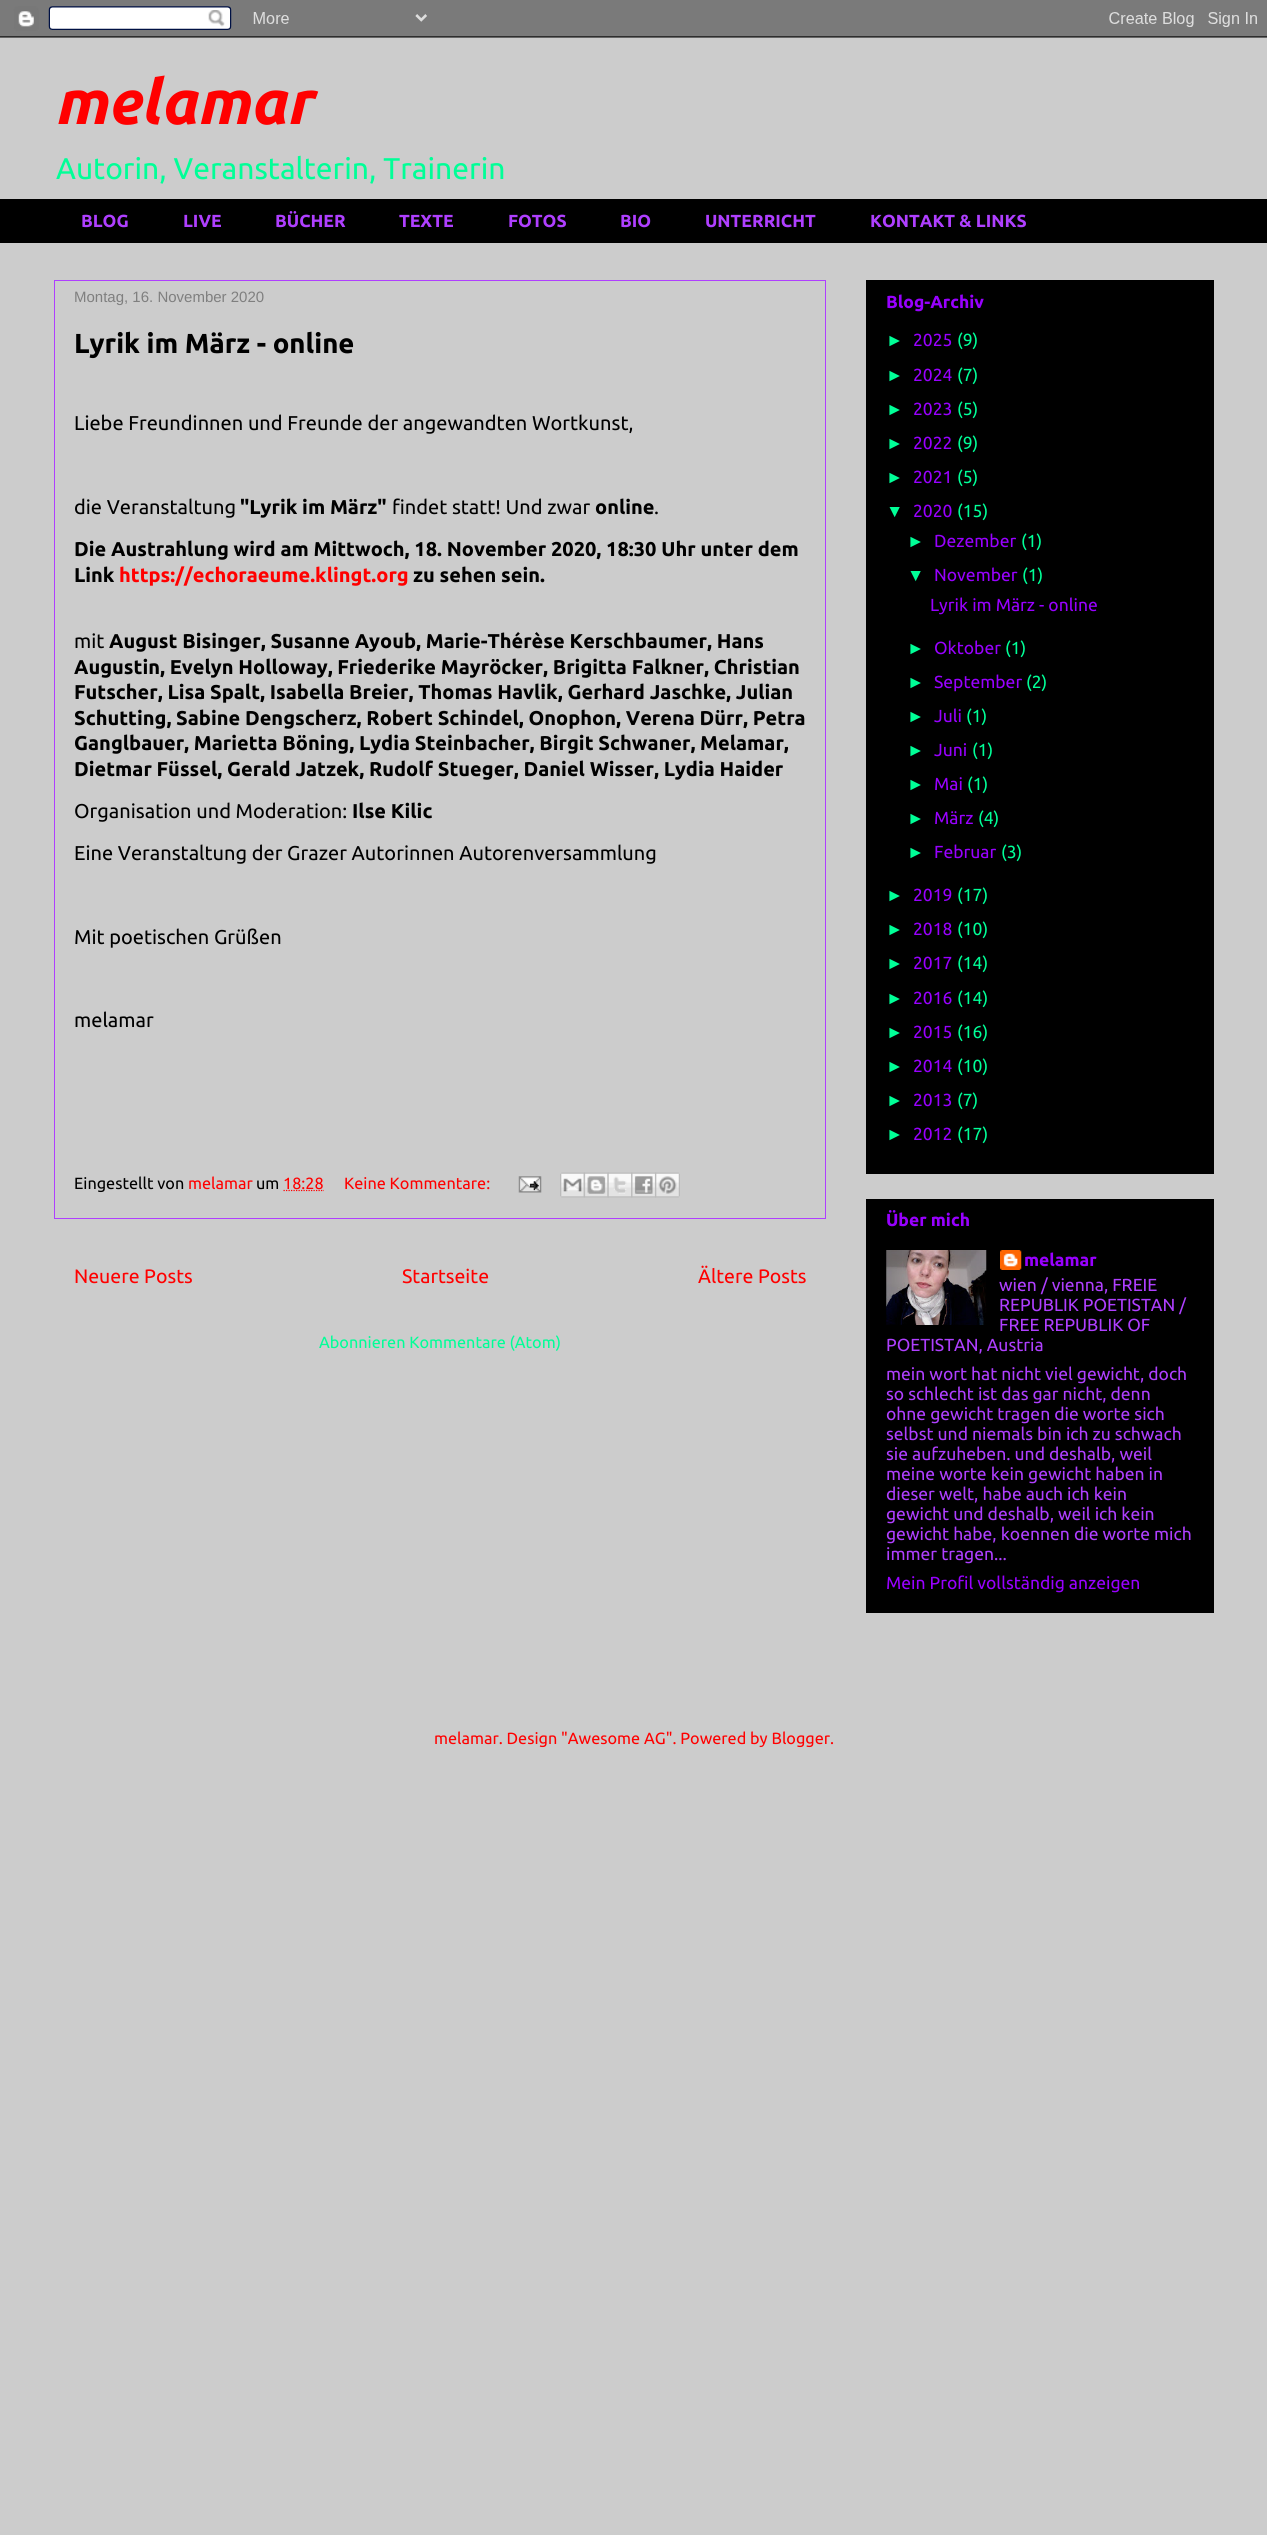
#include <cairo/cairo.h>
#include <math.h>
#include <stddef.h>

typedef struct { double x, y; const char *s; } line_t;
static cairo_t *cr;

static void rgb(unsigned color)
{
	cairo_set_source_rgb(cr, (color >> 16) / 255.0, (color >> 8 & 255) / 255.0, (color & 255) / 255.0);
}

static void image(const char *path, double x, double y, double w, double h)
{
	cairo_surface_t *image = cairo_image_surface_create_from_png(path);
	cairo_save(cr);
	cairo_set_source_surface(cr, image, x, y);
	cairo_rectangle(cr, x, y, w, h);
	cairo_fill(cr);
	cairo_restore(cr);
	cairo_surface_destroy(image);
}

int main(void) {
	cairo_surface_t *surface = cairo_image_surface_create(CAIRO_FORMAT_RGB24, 1267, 2535);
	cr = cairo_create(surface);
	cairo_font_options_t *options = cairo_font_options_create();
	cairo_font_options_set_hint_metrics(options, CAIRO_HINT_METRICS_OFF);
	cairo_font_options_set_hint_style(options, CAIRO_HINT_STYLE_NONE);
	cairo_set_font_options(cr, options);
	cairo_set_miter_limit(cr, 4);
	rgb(0xcccccc);
	cairo_paint(cr);
	image("img/1.png", 0, 0, 1267, 38);
	rgb(0x000000);
	cairo_rectangle(cr, 0, 199, 1267, 44);
	cairo_fill(cr);
	cairo_rectangle(cr, 54.5, 280.5, 771, 938);
	rgb(0xaf3fff);
	cairo_set_line_width(cr, 1);
	cairo_stroke(cr);
	cairo_new_path(cr);
	cairo_move_to(cr, 283.5, 1190.5);
	cairo_line_to(cr, 324, 1190.5);
	rgb(0xff0000);
	cairo_set_line_width(cr, 1.2);
	cairo_set_dash(cr, (double[]){1.25, 1.25}, 2, 0);
	cairo_stroke(cr);
	image("img/2.png", 518, 1176, 24, 17);
	image("img/3.png", 560, 1172, 25, 26);
	image("img/4.png", 583, 1172, 26, 26);
	image("img/5.png", 607, 1172, 26, 26);
	image("img/6.png", 631, 1172, 26, 26);
	image("img/7.png", 655, 1172, 25, 26);
	rgb(0x000000);
	cairo_rectangle(cr, 866, 280, 348, 894);
	cairo_fill(cr);
	cairo_rectangle(cr, 866, 1199, 348, 414);
	cairo_fill(cr);
	image("img/8.png", 886, 1250, 101, 75);
	image("img/9.png", 1000, 1250, 22, 20);
	cairo_select_font_face(cr, "Ubuntu", CAIRO_FONT_SLANT_ITALIC, CAIRO_FONT_WEIGHT_BOLD);
	cairo_set_font_size(cr, 62.5);
	rgb(0xff0000);
	cairo_move_to(cr, 54, 124);
	cairo_show_text(cr, "melamar");
	cairo_select_font_face(cr, "Ubuntu", CAIRO_FONT_SLANT_NORMAL, CAIRO_FONT_WEIGHT_NORMAL);
	cairo_set_font_size(cr, 30);
	rgb(0x00ff97);
	cairo_move_to(cr, 56, 179);
	cairo_show_text(cr, "Autorin, Veranstalterin, Trainerin");
	cairo_select_font_face(cr, "Ubuntu", CAIRO_FONT_SLANT_NORMAL, CAIRO_FONT_WEIGHT_BOLD);
	cairo_set_font_size(cr, 17.5);
	rgb(0xaf3fff);
	{
		static const line_t items[] = {
			{81, 227, "BLOG"},
			{183, 227, "LIVE"},
			{275, 227, "BÜCHER"},
			{399, 227, "TEXTE"},
			{508, 227, "FOTOS"},
			{620, 227, "BIO"},
			{705, 227, "UNTERRICHT"},
			{870, 227, "KONTAKT & LINKS"},
		};
		for (size_t i = 0; i < sizeof items / sizeof *items; i++) {
			cairo_move_to(cr, items[i].x, items[i].y);
			cairo_show_text(cr, items[i].s);
		}
	}
	cairo_select_font_face(cr, "Liberation Sans", CAIRO_FONT_SLANT_NORMAL, CAIRO_FONT_WEIGHT_NORMAL);
	cairo_set_font_size(cr, 15);
	rgb(0x7f7f7f);
	cairo_move_to(cr, 74, 302);
	cairo_show_text(cr, "Montag, 16. November 2020");
	cairo_select_font_face(cr, "Ubuntu", CAIRO_FONT_SLANT_NORMAL, CAIRO_FONT_WEIGHT_BOLD);
	cairo_set_font_size(cr, 27.5);
	rgb(0x000000);
	cairo_move_to(cr, 74, 353);
	cairo_show_text(cr, "Lyrik im März - online");
	cairo_select_font_face(cr, "Ubuntu", CAIRO_FONT_SLANT_NORMAL, CAIRO_FONT_WEIGHT_NORMAL);
	cairo_set_font_size(cr, 20);
	cairo_move_to(cr, 74, 430);
	cairo_show_text(cr, "Liebe Freundinnen und Freunde der angewandten Wortkunst,");
	cairo_move_to(cr, 74, 514);
	cairo_show_text(cr, "die Veranstaltung");
	cairo_select_font_face(cr, "Ubuntu", CAIRO_FONT_SLANT_NORMAL, CAIRO_FONT_WEIGHT_BOLD);
	cairo_move_to(cr, 240, 514);
	cairo_show_text(cr, "\"Lyrik im März\"");
	cairo_select_font_face(cr, "Ubuntu", CAIRO_FONT_SLANT_NORMAL, CAIRO_FONT_WEIGHT_NORMAL);
	cairo_move_to(cr, 392, 514);
	cairo_show_text(cr, "findet statt! Und zwar");
	cairo_select_font_face(cr, "Ubuntu", CAIRO_FONT_SLANT_NORMAL, CAIRO_FONT_WEIGHT_BOLD);
	cairo_move_to(cr, 595, 514);
	cairo_show_text(cr, "online");
	cairo_select_font_face(cr, "Ubuntu", CAIRO_FONT_SLANT_NORMAL, CAIRO_FONT_WEIGHT_NORMAL);
	cairo_move_to(cr, 654, 514);
	cairo_show_text(cr, ".");
	cairo_select_font_face(cr, "Ubuntu", CAIRO_FONT_SLANT_NORMAL, CAIRO_FONT_WEIGHT_BOLD);
	cairo_move_to(cr, 74, 556);
	cairo_show_text(cr, "Die Austrahlung wird am Mittwoch, 18. November 2020, 18:30 Uhr unter dem");
	cairo_move_to(cr, 74, 582);
	cairo_show_text(cr, "Link");
	rgb(0xff0000);
	cairo_move_to(cr, 119, 582);
	cairo_show_text(cr, "https://echoraeume.klingt.org");
	rgb(0x000000);
	cairo_move_to(cr, 413, 582);
	cairo_show_text(cr, "zu sehen sein.");
	cairo_select_font_face(cr, "Ubuntu", CAIRO_FONT_SLANT_NORMAL, CAIRO_FONT_WEIGHT_NORMAL);
	cairo_move_to(cr, 74, 648);
	cairo_show_text(cr, "mit");
	cairo_select_font_face(cr, "Ubuntu", CAIRO_FONT_SLANT_NORMAL, CAIRO_FONT_WEIGHT_BOLD);
	{
		static const line_t items[] = {
			{109, 648, "August Bisinger, Susanne Ayoub, Marie-Thérèse Kerschbaumer, Hans"},
			{74, 674, "Augustin, Evelyn Holloway, Friederike Mayröcker, Brigitta Falkner, Christian"},
			{74, 699, "Futscher, Lisa Spalt, Isabella Breier, Thomas Havlik, Gerhard Jaschke, Julian"},
			{74, 725, "Schutting, Sabine Dengscherz, Robert Schindel, Onophon, Verena Dürr, Petra"},
			{74, 750, "Ganglbauer, Marietta Böning, Lydia Steinbacher, Birgit Schwaner, Melamar,"},
			{74, 776, "Dietmar Füssel, Gerald Jatzek, Rudolf Stueger, Daniel Wisser, Lydia Haider"},
		};
		for (size_t i = 0; i < sizeof items / sizeof *items; i++) {
			cairo_move_to(cr, items[i].x, items[i].y);
			cairo_show_text(cr, items[i].s);
		}
	}
	cairo_select_font_face(cr, "Ubuntu", CAIRO_FONT_SLANT_NORMAL, CAIRO_FONT_WEIGHT_NORMAL);
	cairo_move_to(cr, 74, 818);
	cairo_show_text(cr, "Organisation und Moderation:");
	cairo_select_font_face(cr, "Ubuntu", CAIRO_FONT_SLANT_NORMAL, CAIRO_FONT_WEIGHT_BOLD);
	cairo_move_to(cr, 352, 818);
	cairo_show_text(cr, "Ilse Kilic");
	cairo_select_font_face(cr, "Ubuntu", CAIRO_FONT_SLANT_NORMAL, CAIRO_FONT_WEIGHT_NORMAL);
	{
		static const line_t items[] = {
			{74, 860, "Eine Veranstaltung der Grazer Autorinnen Autorenversammlung"},
			{74, 944, "Mit poetischen Grüßen"},
			{74, 1027, "melamar"},
		};
		for (size_t i = 0; i < sizeof items / sizeof *items; i++) {
			cairo_move_to(cr, items[i].x, items[i].y);
			cairo_show_text(cr, items[i].s);
		}
	}
	cairo_set_font_size(cr, 16.25);
	cairo_move_to(cr, 74, 1189);
	cairo_show_text(cr, "Eingestellt von");
	rgb(0xff0000);
	cairo_move_to(cr, 188, 1189);
	cairo_show_text(cr, "melamar");
	rgb(0x000000);
	cairo_move_to(cr, 256, 1189);
	cairo_show_text(cr, "um");
	rgb(0xff0000);
	cairo_move_to(cr, 283, 1189);
	cairo_show_text(cr, "18:28");
	cairo_move_to(cr, 344, 1189);
	cairo_show_text(cr, "Keine Kommentare:");
	cairo_set_font_size(cr, 19.5);
	{
		static const line_t items[] = {
			{74, 1283, "Neuere Posts"},
			{402, 1283, "Startseite"},
			{698, 1283, "Ältere Posts"},
		};
		for (size_t i = 0; i < sizeof items / sizeof *items; i++) {
			cairo_move_to(cr, items[i].x, items[i].y);
			cairo_show_text(cr, items[i].s);
		}
	}
	cairo_set_font_size(cr, 16.25);
	rgb(0x00ff97);
	cairo_move_to(cr, 319, 1348);
	cairo_show_text(cr, "Abonnieren Kommentare (Atom)");
	cairo_select_font_face(cr, "Ubuntu", CAIRO_FONT_SLANT_NORMAL, CAIRO_FONT_WEIGHT_BOLD);
	cairo_set_font_size(cr, 17.5);
	rgb(0x9800ff);
	cairo_move_to(cr, 886, 308);
	cairo_show_text(cr, "Blog-Archiv");
	cairo_select_font_face(cr, "Liberation Sans", CAIRO_FONT_SLANT_NORMAL, CAIRO_FONT_WEIGHT_NORMAL);
	rgb(0x00ff97);
	cairo_move_to(cr, 886, 346);
	cairo_show_text(cr, "►");
	cairo_select_font_face(cr, "Ubuntu", CAIRO_FONT_SLANT_NORMAL, CAIRO_FONT_WEIGHT_NORMAL);
	rgb(0x9800ff);
	cairo_move_to(cr, 913, 346);
	cairo_show_text(cr, "2025");
	rgb(0x00ff97);
	cairo_move_to(cr, 957, 346);
	cairo_show_text(cr, "(9)");
	cairo_select_font_face(cr, "Liberation Sans", CAIRO_FONT_SLANT_NORMAL, CAIRO_FONT_WEIGHT_NORMAL);
	cairo_move_to(cr, 886, 381);
	cairo_show_text(cr, "►");
	cairo_select_font_face(cr, "Ubuntu", CAIRO_FONT_SLANT_NORMAL, CAIRO_FONT_WEIGHT_NORMAL);
	rgb(0x9800ff);
	cairo_move_to(cr, 913, 381);
	cairo_show_text(cr, "2024");
	rgb(0x00ff97);
	cairo_move_to(cr, 957, 381);
	cairo_show_text(cr, "(7)");
	cairo_select_font_face(cr, "Liberation Sans", CAIRO_FONT_SLANT_NORMAL, CAIRO_FONT_WEIGHT_NORMAL);
	cairo_move_to(cr, 886, 415);
	cairo_show_text(cr, "►");
	cairo_select_font_face(cr, "Ubuntu", CAIRO_FONT_SLANT_NORMAL, CAIRO_FONT_WEIGHT_NORMAL);
	rgb(0x9800ff);
	cairo_move_to(cr, 913, 415);
	cairo_show_text(cr, "2023");
	rgb(0x00ff97);
	cairo_move_to(cr, 957, 415);
	cairo_show_text(cr, "(5)");
	cairo_select_font_face(cr, "Liberation Sans", CAIRO_FONT_SLANT_NORMAL, CAIRO_FONT_WEIGHT_NORMAL);
	cairo_move_to(cr, 886, 449);
	cairo_show_text(cr, "►");
	cairo_select_font_face(cr, "Ubuntu", CAIRO_FONT_SLANT_NORMAL, CAIRO_FONT_WEIGHT_NORMAL);
	rgb(0x9800ff);
	cairo_move_to(cr, 913, 449);
	cairo_show_text(cr, "2022");
	rgb(0x00ff97);
	cairo_move_to(cr, 957, 449);
	cairo_show_text(cr, "(9)");
	cairo_select_font_face(cr, "Liberation Sans", CAIRO_FONT_SLANT_NORMAL, CAIRO_FONT_WEIGHT_NORMAL);
	cairo_move_to(cr, 886, 483);
	cairo_show_text(cr, "►");
	cairo_select_font_face(cr, "Ubuntu", CAIRO_FONT_SLANT_NORMAL, CAIRO_FONT_WEIGHT_NORMAL);
	rgb(0x9800ff);
	cairo_move_to(cr, 913, 483);
	cairo_show_text(cr, "2021");
	rgb(0x00ff97);
	cairo_move_to(cr, 957, 483);
	cairo_show_text(cr, "(5)");
	cairo_select_font_face(cr, "Liberation Sans", CAIRO_FONT_SLANT_NORMAL, CAIRO_FONT_WEIGHT_NORMAL);
	cairo_move_to(cr, 886, 517);
	cairo_show_text(cr, "▼");
	cairo_select_font_face(cr, "Ubuntu", CAIRO_FONT_SLANT_NORMAL, CAIRO_FONT_WEIGHT_NORMAL);
	rgb(0x9800ff);
	cairo_move_to(cr, 913, 517);
	cairo_show_text(cr, "2020");
	rgb(0x00ff97);
	cairo_move_to(cr, 957, 517);
	cairo_show_text(cr, "(15)");
	cairo_select_font_face(cr, "Liberation Sans", CAIRO_FONT_SLANT_NORMAL, CAIRO_FONT_WEIGHT_NORMAL);
	cairo_move_to(cr, 907, 547);
	cairo_show_text(cr, "►");
	cairo_select_font_face(cr, "Ubuntu", CAIRO_FONT_SLANT_NORMAL, CAIRO_FONT_WEIGHT_NORMAL);
	rgb(0x9800ff);
	cairo_move_to(cr, 934, 547);
	cairo_show_text(cr, "Dezember");
	rgb(0x00ff97);
	cairo_move_to(cr, 1021, 547);
	cairo_show_text(cr, "(1)");
	cairo_select_font_face(cr, "Liberation Sans", CAIRO_FONT_SLANT_NORMAL, CAIRO_FONT_WEIGHT_NORMAL);
	cairo_move_to(cr, 907, 581);
	cairo_show_text(cr, "▼");
	cairo_select_font_face(cr, "Ubuntu", CAIRO_FONT_SLANT_NORMAL, CAIRO_FONT_WEIGHT_NORMAL);
	rgb(0x9800ff);
	cairo_move_to(cr, 934, 581);
	cairo_show_text(cr, "November");
	rgb(0x00ff97);
	cairo_move_to(cr, 1022, 581);
	cairo_show_text(cr, "(1)");
	rgb(0x9800ff);
	cairo_move_to(cr, 930, 611);
	cairo_show_text(cr, "Lyrik im März - online");
	cairo_select_font_face(cr, "Liberation Sans", CAIRO_FONT_SLANT_NORMAL, CAIRO_FONT_WEIGHT_NORMAL);
	rgb(0x00ff97);
	cairo_move_to(cr, 907, 654);
	cairo_show_text(cr, "►");
	cairo_select_font_face(cr, "Ubuntu", CAIRO_FONT_SLANT_NORMAL, CAIRO_FONT_WEIGHT_NORMAL);
	rgb(0x9800ff);
	cairo_move_to(cr, 934, 654);
	cairo_show_text(cr, "Oktober");
	rgb(0x00ff97);
	cairo_move_to(cr, 1005, 654);
	cairo_show_text(cr, "(1)");
	cairo_select_font_face(cr, "Liberation Sans", CAIRO_FONT_SLANT_NORMAL, CAIRO_FONT_WEIGHT_NORMAL);
	cairo_move_to(cr, 907, 688);
	cairo_show_text(cr, "►");
	cairo_select_font_face(cr, "Ubuntu", CAIRO_FONT_SLANT_NORMAL, CAIRO_FONT_WEIGHT_NORMAL);
	rgb(0x9800ff);
	cairo_move_to(cr, 934, 688);
	cairo_show_text(cr, "September");
	rgb(0x00ff97);
	cairo_move_to(cr, 1026, 688);
	cairo_show_text(cr, "(2)");
	cairo_select_font_face(cr, "Liberation Sans", CAIRO_FONT_SLANT_NORMAL, CAIRO_FONT_WEIGHT_NORMAL);
	cairo_move_to(cr, 907, 722);
	cairo_show_text(cr, "►");
	cairo_select_font_face(cr, "Ubuntu", CAIRO_FONT_SLANT_NORMAL, CAIRO_FONT_WEIGHT_NORMAL);
	rgb(0x9800ff);
	cairo_move_to(cr, 934, 722);
	cairo_show_text(cr, "Juli");
	rgb(0x00ff97);
	cairo_move_to(cr, 966, 722);
	cairo_show_text(cr, "(1)");
	cairo_select_font_face(cr, "Liberation Sans", CAIRO_FONT_SLANT_NORMAL, CAIRO_FONT_WEIGHT_NORMAL);
	cairo_move_to(cr, 907, 756);
	cairo_show_text(cr, "►");
	cairo_select_font_face(cr, "Ubuntu", CAIRO_FONT_SLANT_NORMAL, CAIRO_FONT_WEIGHT_NORMAL);
	rgb(0x9800ff);
	cairo_move_to(cr, 934, 756);
	cairo_show_text(cr, "Juni");
	rgb(0x00ff97);
	cairo_move_to(cr, 972, 756);
	cairo_show_text(cr, "(1)");
	cairo_select_font_face(cr, "Liberation Sans", CAIRO_FONT_SLANT_NORMAL, CAIRO_FONT_WEIGHT_NORMAL);
	cairo_move_to(cr, 907, 790);
	cairo_show_text(cr, "►");
	cairo_select_font_face(cr, "Ubuntu", CAIRO_FONT_SLANT_NORMAL, CAIRO_FONT_WEIGHT_NORMAL);
	rgb(0x9800ff);
	cairo_move_to(cr, 934, 790);
	cairo_show_text(cr, "Mai");
	rgb(0x00ff97);
	cairo_move_to(cr, 967, 790);
	cairo_show_text(cr, "(1)");
	cairo_select_font_face(cr, "Liberation Sans", CAIRO_FONT_SLANT_NORMAL, CAIRO_FONT_WEIGHT_NORMAL);
	cairo_move_to(cr, 907, 824);
	cairo_show_text(cr, "►");
	cairo_select_font_face(cr, "Ubuntu", CAIRO_FONT_SLANT_NORMAL, CAIRO_FONT_WEIGHT_NORMAL);
	rgb(0x9800ff);
	cairo_move_to(cr, 934, 824);
	cairo_show_text(cr, "März");
	rgb(0x00ff97);
	cairo_move_to(cr, 978, 824);
	cairo_show_text(cr, "(4)");
	cairo_select_font_face(cr, "Liberation Sans", CAIRO_FONT_SLANT_NORMAL, CAIRO_FONT_WEIGHT_NORMAL);
	cairo_move_to(cr, 907, 858);
	cairo_show_text(cr, "►");
	cairo_select_font_face(cr, "Ubuntu", CAIRO_FONT_SLANT_NORMAL, CAIRO_FONT_WEIGHT_NORMAL);
	rgb(0x9800ff);
	cairo_move_to(cr, 934, 858);
	cairo_show_text(cr, "Februar");
	rgb(0x00ff97);
	cairo_move_to(cr, 1001, 858);
	cairo_show_text(cr, "(3)");
	cairo_select_font_face(cr, "Liberation Sans", CAIRO_FONT_SLANT_NORMAL, CAIRO_FONT_WEIGHT_NORMAL);
	cairo_move_to(cr, 886, 901);
	cairo_show_text(cr, "►");
	cairo_select_font_face(cr, "Ubuntu", CAIRO_FONT_SLANT_NORMAL, CAIRO_FONT_WEIGHT_NORMAL);
	rgb(0x9800ff);
	cairo_move_to(cr, 913, 901);
	cairo_show_text(cr, "2019");
	rgb(0x00ff97);
	cairo_move_to(cr, 957, 901);
	cairo_show_text(cr, "(17)");
	cairo_select_font_face(cr, "Liberation Sans", CAIRO_FONT_SLANT_NORMAL, CAIRO_FONT_WEIGHT_NORMAL);
	cairo_move_to(cr, 886, 935);
	cairo_show_text(cr, "►");
	cairo_select_font_face(cr, "Ubuntu", CAIRO_FONT_SLANT_NORMAL, CAIRO_FONT_WEIGHT_NORMAL);
	rgb(0x9800ff);
	cairo_move_to(cr, 913, 935);
	cairo_show_text(cr, "2018");
	rgb(0x00ff97);
	cairo_move_to(cr, 957, 935);
	cairo_show_text(cr, "(10)");
	cairo_select_font_face(cr, "Liberation Sans", CAIRO_FONT_SLANT_NORMAL, CAIRO_FONT_WEIGHT_NORMAL);
	cairo_move_to(cr, 886, 969);
	cairo_show_text(cr, "►");
	cairo_select_font_face(cr, "Ubuntu", CAIRO_FONT_SLANT_NORMAL, CAIRO_FONT_WEIGHT_NORMAL);
	rgb(0x9800ff);
	cairo_move_to(cr, 913, 969);
	cairo_show_text(cr, "2017");
	rgb(0x00ff97);
	cairo_move_to(cr, 957, 969);
	cairo_show_text(cr, "(14)");
	cairo_select_font_face(cr, "Liberation Sans", CAIRO_FONT_SLANT_NORMAL, CAIRO_FONT_WEIGHT_NORMAL);
	cairo_move_to(cr, 886, 1004);
	cairo_show_text(cr, "►");
	cairo_select_font_face(cr, "Ubuntu", CAIRO_FONT_SLANT_NORMAL, CAIRO_FONT_WEIGHT_NORMAL);
	rgb(0x9800ff);
	cairo_move_to(cr, 913, 1004);
	cairo_show_text(cr, "2016");
	rgb(0x00ff97);
	cairo_move_to(cr, 957, 1004);
	cairo_show_text(cr, "(14)");
	cairo_select_font_face(cr, "Liberation Sans", CAIRO_FONT_SLANT_NORMAL, CAIRO_FONT_WEIGHT_NORMAL);
	cairo_move_to(cr, 886, 1038);
	cairo_show_text(cr, "►");
	cairo_select_font_face(cr, "Ubuntu", CAIRO_FONT_SLANT_NORMAL, CAIRO_FONT_WEIGHT_NORMAL);
	rgb(0x9800ff);
	cairo_move_to(cr, 913, 1038);
	cairo_show_text(cr, "2015");
	rgb(0x00ff97);
	cairo_move_to(cr, 957, 1038);
	cairo_show_text(cr, "(16)");
	cairo_select_font_face(cr, "Liberation Sans", CAIRO_FONT_SLANT_NORMAL, CAIRO_FONT_WEIGHT_NORMAL);
	cairo_move_to(cr, 886, 1072);
	cairo_show_text(cr, "►");
	cairo_select_font_face(cr, "Ubuntu", CAIRO_FONT_SLANT_NORMAL, CAIRO_FONT_WEIGHT_NORMAL);
	rgb(0x9800ff);
	cairo_move_to(cr, 913, 1072);
	cairo_show_text(cr, "2014");
	rgb(0x00ff97);
	cairo_move_to(cr, 957, 1072);
	cairo_show_text(cr, "(10)");
	cairo_select_font_face(cr, "Liberation Sans", CAIRO_FONT_SLANT_NORMAL, CAIRO_FONT_WEIGHT_NORMAL);
	cairo_move_to(cr, 886, 1106);
	cairo_show_text(cr, "►");
	cairo_select_font_face(cr, "Ubuntu", CAIRO_FONT_SLANT_NORMAL, CAIRO_FONT_WEIGHT_NORMAL);
	rgb(0x9800ff);
	cairo_move_to(cr, 913, 1106);
	cairo_show_text(cr, "2013");
	rgb(0x00ff97);
	cairo_move_to(cr, 957, 1106);
	cairo_show_text(cr, "(7)");
	cairo_select_font_face(cr, "Liberation Sans", CAIRO_FONT_SLANT_NORMAL, CAIRO_FONT_WEIGHT_NORMAL);
	cairo_move_to(cr, 886, 1140);
	cairo_show_text(cr, "►");
	cairo_select_font_face(cr, "Ubuntu", CAIRO_FONT_SLANT_NORMAL, CAIRO_FONT_WEIGHT_NORMAL);
	rgb(0x9800ff);
	cairo_move_to(cr, 913, 1140);
	cairo_show_text(cr, "2012");
	rgb(0x00ff97);
	cairo_move_to(cr, 957, 1140);
	cairo_show_text(cr, "(17)");
	cairo_select_font_face(cr, "Ubuntu", CAIRO_FONT_SLANT_NORMAL, CAIRO_FONT_WEIGHT_BOLD);
	rgb(0x9800ff);
	cairo_move_to(cr, 886, 1226);
	cairo_show_text(cr, "Über mich");
	cairo_move_to(cr, 1024, 1266);
	cairo_show_text(cr, "melamar");
	cairo_select_font_face(cr, "Ubuntu", CAIRO_FONT_SLANT_NORMAL, CAIRO_FONT_WEIGHT_NORMAL);
	rgb(0xaf3fff);
	{
		static const line_t items[] = {
			{999, 1291, "wien / vienna, FREIE"},
			{999, 1311, "REPUBLIK POETISTAN /"},
			{999, 1331, "FREE REPUBLIK OF"},
			{886, 1351, "POETISTAN, Austria"},
			{886, 1380, "mein wort hat nicht viel gewicht, doch"},
			{886, 1400, "so schlecht ist das gar nicht, denn"},
			{886, 1420, "ohne gewicht tragen die worte sich"},
			{886, 1440, "selbst und niemals bin ich zu schwach"},
			{886, 1460, "sie aufzuheben. und deshalb, weil"},
			{886, 1480, "meine worte kein gewicht haben in"},
			{886, 1500, "dieser welt, habe auch ich kein"},
			{886, 1520, "gewicht und deshalb, weil ich kein"},
			{886, 1540, "gewicht habe, koennen die worte mich"},
			{886, 1560, "immer tragen..."},
		};
		for (size_t i = 0; i < sizeof items / sizeof *items; i++) {
			cairo_move_to(cr, items[i].x, items[i].y);
			cairo_show_text(cr, items[i].s);
		}
	}
	rgb(0x9800ff);
	cairo_move_to(cr, 886, 1589);
	cairo_show_text(cr, "Mein Profil vollständig anzeigen");
	cairo_set_font_size(cr, 16.25);
	rgb(0xff0000);
	cairo_move_to(cr, 434, 1744);
	cairo_show_text(cr, "melamar. Design \"Awesome AG\". Powered by Blogger.");
	cairo_surface_write_to_png(surface, "page.png");
	cairo_font_options_destroy(options);
	cairo_destroy(cr);
	cairo_surface_destroy(surface);
	return 0;
}
